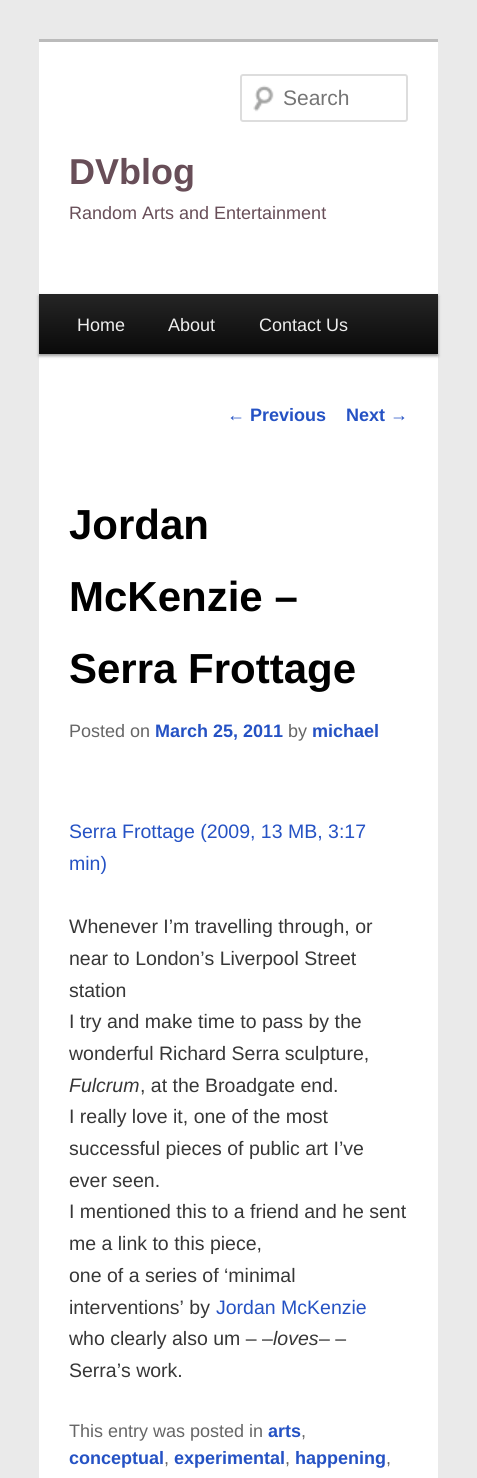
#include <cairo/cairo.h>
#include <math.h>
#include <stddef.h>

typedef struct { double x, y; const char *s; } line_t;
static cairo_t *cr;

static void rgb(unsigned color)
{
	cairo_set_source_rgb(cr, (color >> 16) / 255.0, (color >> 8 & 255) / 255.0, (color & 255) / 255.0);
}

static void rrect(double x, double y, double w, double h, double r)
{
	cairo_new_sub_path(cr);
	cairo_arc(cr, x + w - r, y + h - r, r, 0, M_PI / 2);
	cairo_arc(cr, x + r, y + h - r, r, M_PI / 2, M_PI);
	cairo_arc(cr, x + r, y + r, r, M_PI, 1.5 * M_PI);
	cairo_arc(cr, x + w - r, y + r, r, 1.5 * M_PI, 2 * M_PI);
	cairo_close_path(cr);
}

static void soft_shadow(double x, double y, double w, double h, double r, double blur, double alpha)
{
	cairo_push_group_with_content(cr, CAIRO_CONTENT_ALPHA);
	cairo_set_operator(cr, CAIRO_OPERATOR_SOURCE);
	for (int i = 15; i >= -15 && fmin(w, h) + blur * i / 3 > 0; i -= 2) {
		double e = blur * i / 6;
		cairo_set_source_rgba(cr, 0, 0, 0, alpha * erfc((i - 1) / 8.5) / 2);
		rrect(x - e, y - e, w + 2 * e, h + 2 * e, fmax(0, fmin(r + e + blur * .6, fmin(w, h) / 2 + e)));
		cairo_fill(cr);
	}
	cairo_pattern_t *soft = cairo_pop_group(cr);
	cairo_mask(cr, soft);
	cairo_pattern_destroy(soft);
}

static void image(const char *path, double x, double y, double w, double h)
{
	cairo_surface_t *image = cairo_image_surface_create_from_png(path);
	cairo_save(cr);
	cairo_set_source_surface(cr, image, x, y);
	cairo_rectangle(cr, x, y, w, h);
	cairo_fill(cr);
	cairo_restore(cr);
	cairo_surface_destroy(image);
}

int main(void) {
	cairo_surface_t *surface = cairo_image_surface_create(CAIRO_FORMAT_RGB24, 477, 1478);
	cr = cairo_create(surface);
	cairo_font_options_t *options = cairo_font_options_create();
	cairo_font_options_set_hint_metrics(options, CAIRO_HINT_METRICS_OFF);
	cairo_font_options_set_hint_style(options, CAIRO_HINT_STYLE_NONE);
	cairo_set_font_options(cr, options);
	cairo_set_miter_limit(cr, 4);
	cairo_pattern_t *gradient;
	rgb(0xeaeaea);
	cairo_paint(cr);
	rgb(0xffffff);
	cairo_rectangle(cr, 39, 42, 399, 1436);
	cairo_fill(cr);
	rgb(0xbbbbbb);
	cairo_rectangle(cr, 39, 39, 399, 3);
	cairo_fill(cr);
	image("img/1.png", 253, 85, 21, 27);
	rrect(241, 75, 166, 46, 2);
	rgb(0xdddddd);
	cairo_stroke(cr);
	rgb(0x000000);
	soft_shadow(39, 296, 399, 60, 0, 1.5, 0.4);
	gradient = cairo_pattern_create_linear(239, 294, 239, 354);
	cairo_pattern_add_color_stop_rgba(gradient, 0, 0.145, 0.145, 0.145, 1);
	cairo_pattern_add_color_stop_rgba(gradient, 1, 0.039, 0.039, 0.039, 1);
	cairo_set_source(cr, gradient);
	cairo_pattern_destroy(gradient);
	cairo_rectangle(cr, 39, 294, 399, 60);
	cairo_fill(cr);
	cairo_select_font_face(cr, "Liberation Sans", CAIRO_FONT_SLANT_NORMAL, CAIRO_FONT_WEIGHT_NORMAL);
	cairo_set_font_size(cr, 21);
	rgb(0x757575);
	cairo_move_to(cr, 283, 105);
	cairo_show_text(cr, "Search");
	cairo_select_font_face(cr, "Liberation Sans", CAIRO_FONT_SLANT_NORMAL, CAIRO_FONT_WEIGHT_BOLD);
	cairo_set_font_size(cr, 36);
	rgb(0x684e58);
	cairo_move_to(cr, 69, 184);
	cairo_show_text(cr, "DVblog");
	cairo_select_font_face(cr, "Liberation Sans", CAIRO_FONT_SLANT_NORMAL, CAIRO_FONT_WEIGHT_NORMAL);
	cairo_set_font_size(cr, 18);
	cairo_move_to(cr, 69, 219);
	cairo_show_text(cr, "Random Arts and Entertainment");
	rgb(0xeeeeee);
	{
		static const line_t items[] = {
			{77, 331, "Home"},
			{168, 331, "About"},
			{259, 331, "Contact Us"},
		};
		for (size_t i = 0; i < sizeof items / sizeof *items; i++) {
			cairo_move_to(cr, items[i].x, items[i].y);
			cairo_show_text(cr, items[i].s);
		}
	}
	rgb(0x2552c4);
	cairo_move_to(cr, 227, 421);
	cairo_show_text(cr, "←");
	cairo_select_font_face(cr, "Liberation Sans", CAIRO_FONT_SLANT_NORMAL, CAIRO_FONT_WEIGHT_BOLD);
	cairo_move_to(cr, 250, 421);
	cairo_show_text(cr, "Previous");
	cairo_move_to(cr, 346, 421);
	cairo_show_text(cr, "Next");
	cairo_select_font_face(cr, "Liberation Sans", CAIRO_FONT_SLANT_NORMAL, CAIRO_FONT_WEIGHT_NORMAL);
	cairo_move_to(cr, 390, 421);
	cairo_show_text(cr, "→");
	cairo_select_font_face(cr, "Liberation Sans", CAIRO_FONT_SLANT_NORMAL, CAIRO_FONT_WEIGHT_BOLD);
	cairo_set_font_size(cr, 42);
	rgb(0x000000);
	{
		static const line_t items[] = {
			{69, 539, "Jordan"},
			{69, 611, "McKenzie –"},
			{69, 683, "Serra Frottage"},
		};
		for (size_t i = 0; i < sizeof items / sizeof *items; i++) {
			cairo_move_to(cr, items[i].x, items[i].y);
			cairo_show_text(cr, items[i].s);
		}
	}
	cairo_select_font_face(cr, "Liberation Sans", CAIRO_FONT_SLANT_NORMAL, CAIRO_FONT_WEIGHT_NORMAL);
	cairo_set_font_size(cr, 18);
	rgb(0x666666);
	cairo_move_to(cr, 69, 737);
	cairo_show_text(cr, "Posted on");
	cairo_select_font_face(cr, "Liberation Sans", CAIRO_FONT_SLANT_NORMAL, CAIRO_FONT_WEIGHT_BOLD);
	rgb(0x2552c4);
	cairo_move_to(cr, 155, 737);
	cairo_show_text(cr, "March 25, 2011");
	cairo_select_font_face(cr, "Liberation Sans", CAIRO_FONT_SLANT_NORMAL, CAIRO_FONT_WEIGHT_NORMAL);
	rgb(0x666666);
	cairo_move_to(cr, 288, 737);
	cairo_show_text(cr, "by");
	cairo_select_font_face(cr, "Liberation Sans", CAIRO_FONT_SLANT_NORMAL, CAIRO_FONT_WEIGHT_BOLD);
	rgb(0x2552c4);
	cairo_move_to(cr, 312, 737);
	cairo_show_text(cr, "michael");
	cairo_select_font_face(cr, "Liberation Sans", CAIRO_FONT_SLANT_NORMAL, CAIRO_FONT_WEIGHT_NORMAL);
	cairo_set_font_size(cr, 19.5);
	cairo_move_to(cr, 69, 838);
	cairo_show_text(cr, "Serra Frottage (2009, 13 MB, 3:17");
	cairo_move_to(cr, 69, 870);
	cairo_show_text(cr, "min)");
	rgb(0x373737);
	{
		static const line_t items[] = {
			{69, 933, "Whenever I’m travelling through, or"},
			{69, 965, "near to London’s Liverpool Street"},
			{69, 997, "station"},
			{69, 1028, "I try and make time to pass by the"},
			{69, 1060, "wonderful Richard Serra sculpture,"},
		};
		for (size_t i = 0; i < sizeof items / sizeof *items; i++) {
			cairo_move_to(cr, items[i].x, items[i].y);
			cairo_show_text(cr, items[i].s);
		}
	}
	cairo_select_font_face(cr, "Liberation Sans", CAIRO_FONT_SLANT_ITALIC, CAIRO_FONT_WEIGHT_NORMAL);
	cairo_move_to(cr, 69, 1092);
	cairo_show_text(cr, "Fulcrum");
	cairo_select_font_face(cr, "Liberation Sans", CAIRO_FONT_SLANT_NORMAL, CAIRO_FONT_WEIGHT_NORMAL);
	{
		static const line_t items[] = {
			{140, 1092, ", at the Broadgate end."},
			{69, 1123, "I really love it, one of the most"},
			{69, 1155, "successful pieces of public art I’ve"},
			{69, 1187, "ever seen."},
			{69, 1218, "I mentioned this to a friend and he sent"},
			{69, 1250, "me a link to this piece,"},
			{69, 1282, "one of a series of ‘minimal"},
			{69, 1314, "interventions’ by"},
		};
		for (size_t i = 0; i < sizeof items / sizeof *items; i++) {
			cairo_move_to(cr, items[i].x, items[i].y);
			cairo_show_text(cr, items[i].s);
		}
	}
	rgb(0x2552c4);
	cairo_move_to(cr, 216, 1314);
	cairo_show_text(cr, "Jordan McKenzie");
	rgb(0x373737);
	cairo_move_to(cr, 69, 1345);
	cairo_show_text(cr, "who clearly also um – –");
	cairo_select_font_face(cr, "Liberation Sans", CAIRO_FONT_SLANT_ITALIC, CAIRO_FONT_WEIGHT_NORMAL);
	cairo_move_to(cr, 273, 1345);
	cairo_show_text(cr, "loves");
	cairo_select_font_face(cr, "Liberation Sans", CAIRO_FONT_SLANT_NORMAL, CAIRO_FONT_WEIGHT_NORMAL);
	cairo_move_to(cr, 319, 1345);
	cairo_show_text(cr, "– –");
	cairo_move_to(cr, 69, 1377);
	cairo_show_text(cr, "Serra’s work.");
	cairo_set_font_size(cr, 18);
	rgb(0x666666);
	cairo_move_to(cr, 69, 1437);
	cairo_show_text(cr, "This entry was posted in");
	cairo_select_font_face(cr, "Liberation Sans", CAIRO_FONT_SLANT_NORMAL, CAIRO_FONT_WEIGHT_BOLD);
	rgb(0x2552c4);
	cairo_move_to(cr, 268, 1437);
	cairo_show_text(cr, "arts");
	cairo_select_font_face(cr, "Liberation Sans", CAIRO_FONT_SLANT_NORMAL, CAIRO_FONT_WEIGHT_NORMAL);
	rgb(0x666666);
	cairo_move_to(cr, 301, 1437);
	cairo_show_text(cr, ",");
	cairo_select_font_face(cr, "Liberation Sans", CAIRO_FONT_SLANT_NORMAL, CAIRO_FONT_WEIGHT_BOLD);
	rgb(0x2552c4);
	cairo_move_to(cr, 69, 1464);
	cairo_show_text(cr, "conceptual");
	cairo_select_font_face(cr, "Liberation Sans", CAIRO_FONT_SLANT_NORMAL, CAIRO_FONT_WEIGHT_NORMAL);
	rgb(0x666666);
	cairo_move_to(cr, 164, 1464);
	cairo_show_text(cr, ",");
	cairo_select_font_face(cr, "Liberation Sans", CAIRO_FONT_SLANT_NORMAL, CAIRO_FONT_WEIGHT_BOLD);
	rgb(0x2552c4);
	cairo_move_to(cr, 174, 1464);
	cairo_show_text(cr, "experimental");
	cairo_select_font_face(cr, "Liberation Sans", CAIRO_FONT_SLANT_NORMAL, CAIRO_FONT_WEIGHT_NORMAL);
	rgb(0x666666);
	cairo_move_to(cr, 285, 1464);
	cairo_show_text(cr, ",");
	cairo_select_font_face(cr, "Liberation Sans", CAIRO_FONT_SLANT_NORMAL, CAIRO_FONT_WEIGHT_BOLD);
	rgb(0x2552c4);
	cairo_move_to(cr, 295, 1464);
	cairo_show_text(cr, "happening");
	cairo_select_font_face(cr, "Liberation Sans", CAIRO_FONT_SLANT_NORMAL, CAIRO_FONT_WEIGHT_NORMAL);
	rgb(0x666666);
	cairo_move_to(cr, 386, 1464);
	cairo_show_text(cr, ",");
	cairo_surface_write_to_png(surface, "page.png");
	cairo_font_options_destroy(options);
	cairo_destroy(cr);
	cairo_surface_destroy(surface);
	return 0;
}
